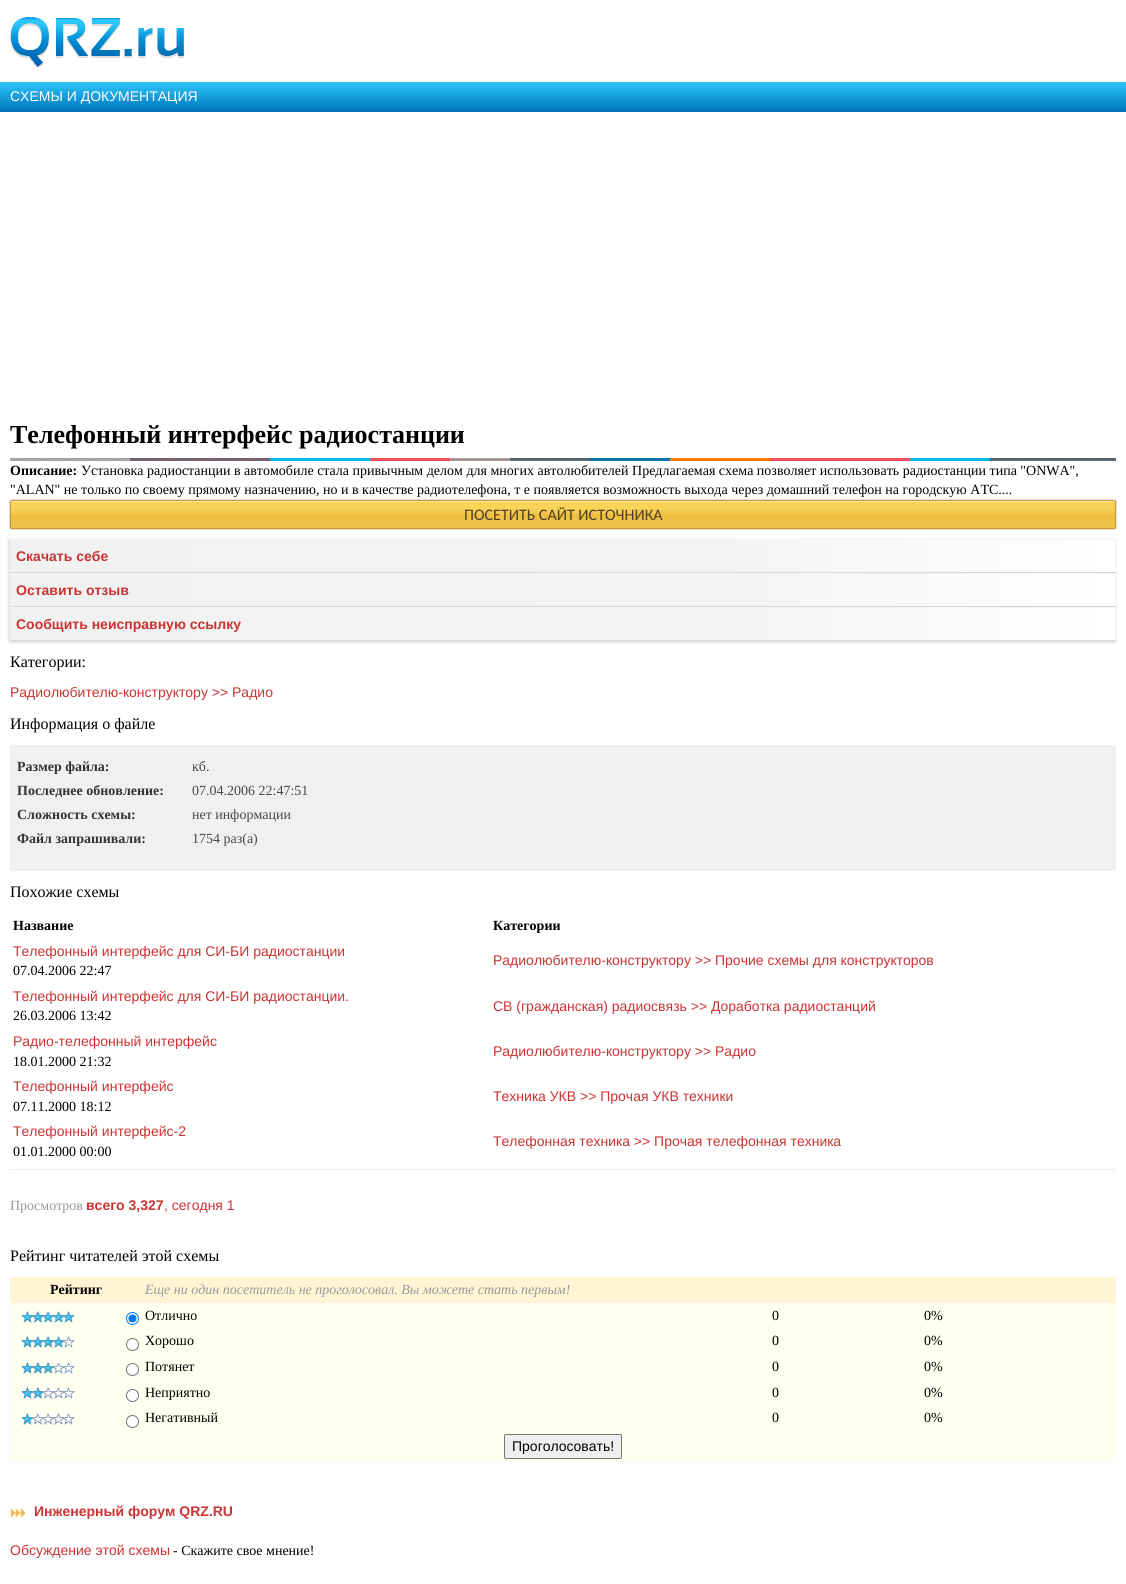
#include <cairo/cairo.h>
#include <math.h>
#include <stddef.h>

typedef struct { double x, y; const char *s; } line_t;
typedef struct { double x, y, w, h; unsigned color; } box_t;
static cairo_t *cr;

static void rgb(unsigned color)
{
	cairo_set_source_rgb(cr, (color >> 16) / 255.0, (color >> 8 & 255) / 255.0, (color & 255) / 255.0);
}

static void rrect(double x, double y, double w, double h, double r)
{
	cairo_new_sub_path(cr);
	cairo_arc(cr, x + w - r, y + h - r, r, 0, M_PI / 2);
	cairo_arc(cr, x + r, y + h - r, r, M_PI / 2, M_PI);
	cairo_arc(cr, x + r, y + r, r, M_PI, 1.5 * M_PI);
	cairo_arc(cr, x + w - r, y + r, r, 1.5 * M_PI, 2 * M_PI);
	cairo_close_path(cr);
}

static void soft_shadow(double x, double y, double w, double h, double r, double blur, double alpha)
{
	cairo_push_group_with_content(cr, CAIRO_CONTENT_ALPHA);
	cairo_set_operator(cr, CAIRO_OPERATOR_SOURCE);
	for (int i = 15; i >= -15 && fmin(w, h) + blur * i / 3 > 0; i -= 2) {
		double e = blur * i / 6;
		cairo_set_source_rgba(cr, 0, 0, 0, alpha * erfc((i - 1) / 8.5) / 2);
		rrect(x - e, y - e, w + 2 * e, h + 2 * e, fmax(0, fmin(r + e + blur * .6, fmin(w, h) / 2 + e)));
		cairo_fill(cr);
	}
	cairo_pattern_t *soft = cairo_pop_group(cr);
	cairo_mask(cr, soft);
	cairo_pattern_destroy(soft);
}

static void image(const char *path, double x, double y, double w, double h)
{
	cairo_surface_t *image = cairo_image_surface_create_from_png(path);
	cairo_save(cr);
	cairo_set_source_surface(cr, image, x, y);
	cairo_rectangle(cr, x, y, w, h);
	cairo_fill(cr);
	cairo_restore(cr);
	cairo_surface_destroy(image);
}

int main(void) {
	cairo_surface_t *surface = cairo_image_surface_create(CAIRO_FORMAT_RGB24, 1126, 1584);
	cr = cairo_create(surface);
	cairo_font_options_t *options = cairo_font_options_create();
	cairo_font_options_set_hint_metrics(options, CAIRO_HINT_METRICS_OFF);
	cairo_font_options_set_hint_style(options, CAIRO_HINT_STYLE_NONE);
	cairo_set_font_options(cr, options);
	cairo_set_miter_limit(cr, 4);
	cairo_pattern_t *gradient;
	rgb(0xffffff);
	cairo_paint(cr);
	image("img/1.png", 10, 17, 174, 50);
	gradient = cairo_pattern_create_linear(563, 82, 563, 112);
	cairo_pattern_add_color_stop_rgba(gradient, 0, 0.176, 0.776, 0.976, 1);
	cairo_pattern_add_color_stop_rgba(gradient, 1, 0, 0.451, 0.733, 1);
	cairo_set_source(cr, gradient);
	cairo_pattern_destroy(gradient);
	cairo_rectangle(cr, 0, 82, 1126, 30);
	cairo_fill(cr);
	image("img/2.png", 10, 458, 1106, 3);
	rgb(0xadadad);
	soft_shadow(10, 500, 1106, 29, 2, 1, 1);
	rgb(0xedc145);
	rrect(10, 500, 1106, 29, 2);
	cairo_fill(cr);
	image("img/3.png", 10, 500, 1106, 17);
	rrect(10.5, 500.5, 1105, 28, 1.5);
	rgb(0xcd9232);
	cairo_set_line_width(cr, 1);
	cairo_stroke(cr);
	rgb(0xcccccc);
	soft_shadow(9, 540, 1106, 102, 0, 1.5, 1);
	gradient = cairo_pattern_create_linear(11, 540, 1115, 540);
	cairo_pattern_add_color_stop_rgba(gradient, 0, 0.945, 0.945, 0.945, 1);
	cairo_pattern_add_color_stop_rgba(gradient, 0.64, 0.953, 0.953, 0.953, 1);
	cairo_pattern_add_color_stop_rgba(gradient, 1, 1, 1, 1, 1);
	cairo_set_source(cr, gradient);
	cairo_pattern_destroy(gradient);
	cairo_rectangle(cr, 11, 540, 1104, 32);
	cairo_fill(cr);
	{
		static const box_t items[] = {
			{10, 539, 1106, 1, 0xf5f5f5},
			{1115, 539, 1, 34, 0xf5f5f5},
			{10, 572, 1106, 1, 0xd6d6d6},
			{10, 539, 1, 34, 0xf5f5f5},
		};
		for (size_t i = 0; i < sizeof items / sizeof *items; i++) {
			rgb(items[i].color);
			cairo_rectangle(cr, items[i].x, items[i].y, items[i].w, items[i].h);
			cairo_fill(cr);
		}
	}
	gradient = cairo_pattern_create_linear(11, 574, 1115, 574);
	cairo_pattern_add_color_stop_rgba(gradient, 0, 0.945, 0.945, 0.945, 1);
	cairo_pattern_add_color_stop_rgba(gradient, 0.64, 0.953, 0.953, 0.953, 1);
	cairo_pattern_add_color_stop_rgba(gradient, 1, 1, 1, 1, 1);
	cairo_set_source(cr, gradient);
	cairo_pattern_destroy(gradient);
	cairo_rectangle(cr, 11, 574, 1104, 32);
	cairo_fill(cr);
	{
		static const box_t items[] = {
			{10, 573, 1106, 1, 0xf5f5f5},
			{1115, 573, 1, 34, 0xf5f5f5},
			{10, 606, 1106, 1, 0xd6d6d6},
			{10, 573, 1, 34, 0xf5f5f5},
		};
		for (size_t i = 0; i < sizeof items / sizeof *items; i++) {
			rgb(items[i].color);
			cairo_rectangle(cr, items[i].x, items[i].y, items[i].w, items[i].h);
			cairo_fill(cr);
		}
	}
	gradient = cairo_pattern_create_linear(11, 608, 1115, 608);
	cairo_pattern_add_color_stop_rgba(gradient, 0, 0.945, 0.945, 0.945, 1);
	cairo_pattern_add_color_stop_rgba(gradient, 0.64, 0.953, 0.953, 0.953, 1);
	cairo_pattern_add_color_stop_rgba(gradient, 1, 1, 1, 1, 1);
	cairo_set_source(cr, gradient);
	cairo_pattern_destroy(gradient);
	cairo_rectangle(cr, 11, 608, 1104, 32);
	cairo_fill(cr);
	{
		static const box_t items[] = {
			{10, 607, 1106, 1, 0xf5f5f5},
			{1115, 607, 1, 34, 0xf5f5f5},
			{10, 640, 1106, 1, 0xd6d6d6},
			{10, 607, 1, 34, 0xf5f5f5},
			{10, 745, 1106, 126, 0xf0f0f0},
			{10, 1169, 1106, 1, 0xeeeeee},
			{10, 1277, 1106, 26, 0xfff5d5},
			{10, 1303, 1106, 159, 0xfffff0},
		};
		for (size_t i = 0; i < sizeof items / sizeof *items; i++) {
			rgb(items[i].color);
			cairo_rectangle(cr, items[i].x, items[i].y, items[i].w, items[i].h);
			cairo_fill(cr);
		}
	}
	image("img/4.png", 20, 1311, 56, 12);
	rgb(0xffffff);
	cairo_arc(cr, 132.5, 1318.5, 6, 0, 2 * M_PI);
	cairo_fill_preserve(cr);
	rgb(0x0075ff);
	cairo_stroke(cr);
	cairo_arc(cr, 132.5, 1318.5, 4, 0, 2 * M_PI);
	cairo_fill(cr);
	image("img/5.png", 20, 1336, 56, 12);
	rgb(0xffffff);
	cairo_arc(cr, 132.5, 1344.5, 6, 0, 2 * M_PI);
	cairo_fill_preserve(cr);
	rgb(0x767676);
	cairo_stroke(cr);
	image("img/6.png", 20, 1362, 56, 12);
	rgb(0xffffff);
	cairo_arc(cr, 132.5, 1369.5, 6, 0, 2 * M_PI);
	cairo_fill_preserve(cr);
	rgb(0x767676);
	cairo_stroke(cr);
	image("img/7.png", 20, 1387, 56, 12);
	rgb(0xffffff);
	cairo_arc(cr, 132.5, 1395.5, 6, 0, 2 * M_PI);
	cairo_fill_preserve(cr);
	rgb(0x767676);
	cairo_stroke(cr);
	image("img/8.png", 20, 1413, 56, 12);
	rgb(0xffffff);
	cairo_arc(cr, 132.5, 1421.5, 6, 0, 2 * M_PI);
	cairo_fill_preserve(cr);
	rgb(0x767676);
	cairo_stroke(cr);
	rgb(0xefefef);
	rrect(504.5, 1434.5, 117, 24, 1.5);
	cairo_fill_preserve(cr);
	rgb(0x767676);
	cairo_stroke(cr);
	image("img/9.png", 11, 1508, 14, 10);
	cairo_select_font_face(cr, "Liberation Sans", CAIRO_FONT_SLANT_NORMAL, CAIRO_FONT_WEIGHT_NORMAL);
	cairo_set_font_size(cr, 14);
	rgb(0xffffff);
	cairo_move_to(cr, 10, 101);
	cairo_show_text(cr, "СХЕМЫ И ДОКУМЕНТАЦИЯ");
	cairo_select_font_face(cr, "Liberation Serif", CAIRO_FONT_SLANT_NORMAL, CAIRO_FONT_WEIGHT_BOLD);
	cairo_set_font_size(cr, 26);
	rgb(0x000000);
	cairo_move_to(cr, 10, 443);
	cairo_show_text(cr, "Телефонный интерфейс радиостанции");
	cairo_set_font_size(cr, 14);
	cairo_move_to(cr, 10, 475);
	cairo_show_text(cr, "Описание:");
	cairo_select_font_face(cr, "Liberation Serif", CAIRO_FONT_SLANT_NORMAL, CAIRO_FONT_WEIGHT_NORMAL);
	cairo_move_to(cr, 81, 475);
	cairo_show_text(cr, "Установка радиостанции в автомобиле стала привычным делом для многих автолюбителей Предлагаемая схема позволяет использовать радиостанции типа \"ONWA\",");
	cairo_move_to(cr, 10, 494);
	cairo_show_text(cr, "\"ALAN\" не только по своему прямому назначению, но и в качестве радиотелефона, т е появляется возможность выхода через домашний телефон на городскую АТС....");
	cairo_select_font_face(cr, "Carlito", CAIRO_FONT_SLANT_NORMAL, CAIRO_FONT_WEIGHT_NORMAL);
	cairo_set_font_size(cr, 16);
	rgb(0x503e23);
	cairo_move_to(cr, 464, 520);
	cairo_show_text(cr, "ПОСЕТИТЬ САЙТ ИСТОЧНИКА");
	cairo_select_font_face(cr, "Liberation Sans", CAIRO_FONT_SLANT_NORMAL, CAIRO_FONT_WEIGHT_BOLD);
	cairo_set_font_size(cr, 14);
	rgb(0xcc3333);
	{
		static const line_t items[] = {
			{16, 561, "Скачать себе"},
			{16, 595, "Оставить отзыв"},
			{16, 629, "Сообщить неисправную ссылку"},
		};
		for (size_t i = 0; i < sizeof items / sizeof *items; i++) {
			cairo_move_to(cr, items[i].x, items[i].y);
			cairo_show_text(cr, items[i].s);
		}
	}
	cairo_select_font_face(cr, "Liberation Serif", CAIRO_FONT_SLANT_NORMAL, CAIRO_FONT_WEIGHT_NORMAL);
	cairo_set_font_size(cr, 16);
	rgb(0x000000);
	cairo_move_to(cr, 10, 667);
	cairo_show_text(cr, "Категории:");
	cairo_select_font_face(cr, "Liberation Sans", CAIRO_FONT_SLANT_NORMAL, CAIRO_FONT_WEIGHT_NORMAL);
	cairo_set_font_size(cr, 14);
	rgb(0xcc3333);
	cairo_move_to(cr, 10, 697);
	cairo_show_text(cr, "Радиолюбителю-конструктору >> Радио");
	cairo_select_font_face(cr, "Liberation Serif", CAIRO_FONT_SLANT_NORMAL, CAIRO_FONT_WEIGHT_NORMAL);
	cairo_set_font_size(cr, 16);
	rgb(0x000000);
	cairo_move_to(cr, 10, 729);
	cairo_show_text(cr, "Информация о файле");
	cairo_select_font_face(cr, "Liberation Serif", CAIRO_FONT_SLANT_NORMAL, CAIRO_FONT_WEIGHT_BOLD);
	cairo_set_font_size(cr, 14);
	rgb(0x333333);
	cairo_move_to(cr, 17, 771);
	cairo_show_text(cr, "Размер файла:");
	cairo_select_font_face(cr, "Liberation Serif", CAIRO_FONT_SLANT_NORMAL, CAIRO_FONT_WEIGHT_NORMAL);
	rgb(0x484848);
	cairo_move_to(cr, 192, 771);
	cairo_show_text(cr, "кб.");
	cairo_select_font_face(cr, "Liberation Serif", CAIRO_FONT_SLANT_NORMAL, CAIRO_FONT_WEIGHT_BOLD);
	rgb(0x333333);
	cairo_move_to(cr, 17, 795);
	cairo_show_text(cr, "Последнее обновление:");
	cairo_select_font_face(cr, "Liberation Serif", CAIRO_FONT_SLANT_NORMAL, CAIRO_FONT_WEIGHT_NORMAL);
	rgb(0x484848);
	cairo_move_to(cr, 192, 795);
	cairo_show_text(cr, "07.04.2006 22:47:51");
	cairo_select_font_face(cr, "Liberation Serif", CAIRO_FONT_SLANT_NORMAL, CAIRO_FONT_WEIGHT_BOLD);
	rgb(0x333333);
	cairo_move_to(cr, 17, 819);
	cairo_show_text(cr, "Сложность схемы:");
	cairo_select_font_face(cr, "Liberation Serif", CAIRO_FONT_SLANT_NORMAL, CAIRO_FONT_WEIGHT_NORMAL);
	rgb(0x484848);
	cairo_move_to(cr, 192, 819);
	cairo_show_text(cr, "нет информации");
	cairo_select_font_face(cr, "Liberation Serif", CAIRO_FONT_SLANT_NORMAL, CAIRO_FONT_WEIGHT_BOLD);
	rgb(0x333333);
	cairo_move_to(cr, 17, 843);
	cairo_show_text(cr, "Файл запрашивали:");
	cairo_select_font_face(cr, "Liberation Serif", CAIRO_FONT_SLANT_NORMAL, CAIRO_FONT_WEIGHT_NORMAL);
	rgb(0x484848);
	cairo_move_to(cr, 192, 843);
	cairo_show_text(cr, "1754 раз(а)");
	cairo_set_font_size(cr, 16);
	rgb(0x000000);
	cairo_move_to(cr, 10, 897);
	cairo_show_text(cr, "Похожие схемы");
	cairo_select_font_face(cr, "Liberation Serif", CAIRO_FONT_SLANT_NORMAL, CAIRO_FONT_WEIGHT_BOLD);
	cairo_set_font_size(cr, 14);
	cairo_move_to(cr, 13, 930);
	cairo_show_text(cr, "Название");
	cairo_move_to(cr, 493, 930);
	cairo_show_text(cr, "Категории");
	cairo_select_font_face(cr, "Liberation Sans", CAIRO_FONT_SLANT_NORMAL, CAIRO_FONT_WEIGHT_NORMAL);
	rgb(0xcc3333);
	cairo_move_to(cr, 13, 956);
	cairo_show_text(cr, "Телефонный интерфейс для СИ-БИ радиостанции");
	cairo_select_font_face(cr, "Liberation Serif", CAIRO_FONT_SLANT_NORMAL, CAIRO_FONT_WEIGHT_NORMAL);
	rgb(0x000000);
	cairo_move_to(cr, 13, 975);
	cairo_show_text(cr, "07.04.2006 22:47");
	cairo_select_font_face(cr, "Liberation Sans", CAIRO_FONT_SLANT_NORMAL, CAIRO_FONT_WEIGHT_NORMAL);
	rgb(0xcc3333);
	cairo_move_to(cr, 493, 965);
	cairo_show_text(cr, "Радиолюбителю-конструктору >> Прочие схемы для конструкторов");
	cairo_move_to(cr, 13, 1001);
	cairo_show_text(cr, "Телефонный интерфейс для СИ-БИ радиостанции.");
	cairo_select_font_face(cr, "Liberation Serif", CAIRO_FONT_SLANT_NORMAL, CAIRO_FONT_WEIGHT_NORMAL);
	rgb(0x000000);
	cairo_move_to(cr, 13, 1020);
	cairo_show_text(cr, "26.03.2006 13:42");
	cairo_select_font_face(cr, "Liberation Sans", CAIRO_FONT_SLANT_NORMAL, CAIRO_FONT_WEIGHT_NORMAL);
	rgb(0xcc3333);
	cairo_move_to(cr, 493, 1011);
	cairo_show_text(cr, "СВ (гражданская) радиосвязь >> Доработка радиостанций");
	cairo_move_to(cr, 13, 1046);
	cairo_show_text(cr, "Радио-телефонный интерфейс");
	cairo_select_font_face(cr, "Liberation Serif", CAIRO_FONT_SLANT_NORMAL, CAIRO_FONT_WEIGHT_NORMAL);
	rgb(0x000000);
	cairo_move_to(cr, 13, 1066);
	cairo_show_text(cr, "18.01.2000 21:32");
	cairo_select_font_face(cr, "Liberation Sans", CAIRO_FONT_SLANT_NORMAL, CAIRO_FONT_WEIGHT_NORMAL);
	rgb(0xcc3333);
	cairo_move_to(cr, 493, 1056);
	cairo_show_text(cr, "Радиолюбителю-конструктору >> Радио");
	cairo_move_to(cr, 13, 1091);
	cairo_show_text(cr, "Телефонный интерфейс");
	cairo_select_font_face(cr, "Liberation Serif", CAIRO_FONT_SLANT_NORMAL, CAIRO_FONT_WEIGHT_NORMAL);
	rgb(0x000000);
	cairo_move_to(cr, 13, 1111);
	cairo_show_text(cr, "07.11.2000 18:12");
	cairo_select_font_face(cr, "Liberation Sans", CAIRO_FONT_SLANT_NORMAL, CAIRO_FONT_WEIGHT_NORMAL);
	rgb(0xcc3333);
	cairo_move_to(cr, 493, 1101);
	cairo_show_text(cr, "Техника УКВ >> Прочая УКВ техники");
	cairo_move_to(cr, 13, 1136);
	cairo_show_text(cr, "Телефонный интерфейс-2");
	cairo_select_font_face(cr, "Liberation Serif", CAIRO_FONT_SLANT_NORMAL, CAIRO_FONT_WEIGHT_NORMAL);
	rgb(0x000000);
	cairo_move_to(cr, 13, 1156);
	cairo_show_text(cr, "01.01.2000 00:00");
	cairo_select_font_face(cr, "Liberation Sans", CAIRO_FONT_SLANT_NORMAL, CAIRO_FONT_WEIGHT_NORMAL);
	rgb(0xcc3333);
	cairo_move_to(cr, 493, 1146);
	cairo_show_text(cr, "Телефонная техника >> Прочая телефонная техника");
	cairo_select_font_face(cr, "Liberation Serif", CAIRO_FONT_SLANT_NORMAL, CAIRO_FONT_WEIGHT_NORMAL);
	rgb(0x999999);
	cairo_move_to(cr, 10, 1210);
	cairo_show_text(cr, "Просмотров");
	cairo_select_font_face(cr, "Liberation Sans", CAIRO_FONT_SLANT_NORMAL, CAIRO_FONT_WEIGHT_BOLD);
	rgb(0xcc3333);
	cairo_move_to(cr, 86, 1210);
	cairo_show_text(cr, "всего 3,327");
	cairo_select_font_face(cr, "Liberation Sans", CAIRO_FONT_SLANT_NORMAL, CAIRO_FONT_WEIGHT_NORMAL);
	cairo_move_to(cr, 164, 1210);
	cairo_show_text(cr, ", сегодня 1");
	cairo_select_font_face(cr, "Liberation Serif", CAIRO_FONT_SLANT_NORMAL, CAIRO_FONT_WEIGHT_NORMAL);
	cairo_set_font_size(cr, 16);
	rgb(0x000000);
	cairo_move_to(cr, 10, 1261);
	cairo_show_text(cr, "Рейтинг читателей этой схемы");
	cairo_select_font_face(cr, "Liberation Serif", CAIRO_FONT_SLANT_NORMAL, CAIRO_FONT_WEIGHT_BOLD);
	cairo_set_font_size(cr, 14);
	cairo_move_to(cr, 50, 1294);
	cairo_show_text(cr, "Рейтинг");
	cairo_select_font_face(cr, "Liberation Serif", CAIRO_FONT_SLANT_ITALIC, CAIRO_FONT_WEIGHT_NORMAL);
	rgb(0x999999);
	cairo_move_to(cr, 145, 1294);
	cairo_show_text(cr, "Еще ни один посетитель не проголосовал. Вы можете стать первым!");
	cairo_select_font_face(cr, "Liberation Serif", CAIRO_FONT_SLANT_NORMAL, CAIRO_FONT_WEIGHT_NORMAL);
	rgb(0x000000);
	{
		static const line_t items[] = {
			{145, 1320, "Отлично"},
			{772, 1320, "0"},
			{924, 1320, "0%"},
			{145, 1345, "Хорошо"},
			{772, 1345, "0"},
			{924, 1345, "0%"},
			{145, 1371, "Потянет"},
			{772, 1371, "0"},
			{924, 1371, "0%"},
			{145, 1397, "Неприятно"},
			{772, 1397, "0"},
			{924, 1397, "0%"},
			{145, 1422, "Негативный"},
			{772, 1422, "0"},
			{924, 1422, "0%"},
		};
		for (size_t i = 0; i < sizeof items / sizeof *items; i++) {
			cairo_move_to(cr, items[i].x, items[i].y);
			cairo_show_text(cr, items[i].s);
		}
	}
	cairo_select_font_face(cr, "Liberation Sans", CAIRO_FONT_SLANT_NORMAL, CAIRO_FONT_WEIGHT_NORMAL);
	cairo_move_to(cr, 512, 1451);
	cairo_show_text(cr, "Проголосовать!");
	cairo_select_font_face(cr, "Liberation Sans", CAIRO_FONT_SLANT_NORMAL, CAIRO_FONT_WEIGHT_BOLD);
	rgb(0xcc3333);
	cairo_move_to(cr, 34, 1516);
	cairo_show_text(cr, "Инженерный форум QRZ.RU");
	cairo_select_font_face(cr, "Liberation Sans", CAIRO_FONT_SLANT_NORMAL, CAIRO_FONT_WEIGHT_NORMAL);
	cairo_move_to(cr, 10, 1555);
	cairo_show_text(cr, "Обсуждение этой схемы");
	cairo_select_font_face(cr, "Liberation Serif", CAIRO_FONT_SLANT_NORMAL, CAIRO_FONT_WEIGHT_NORMAL);
	rgb(0x000000);
	cairo_move_to(cr, 173, 1555);
	cairo_show_text(cr, "- Скажите свое мнение!");
	cairo_surface_write_to_png(surface, "page.png");
	cairo_font_options_destroy(options);
	cairo_destroy(cr);
	cairo_surface_destroy(surface);
	return 0;
}
